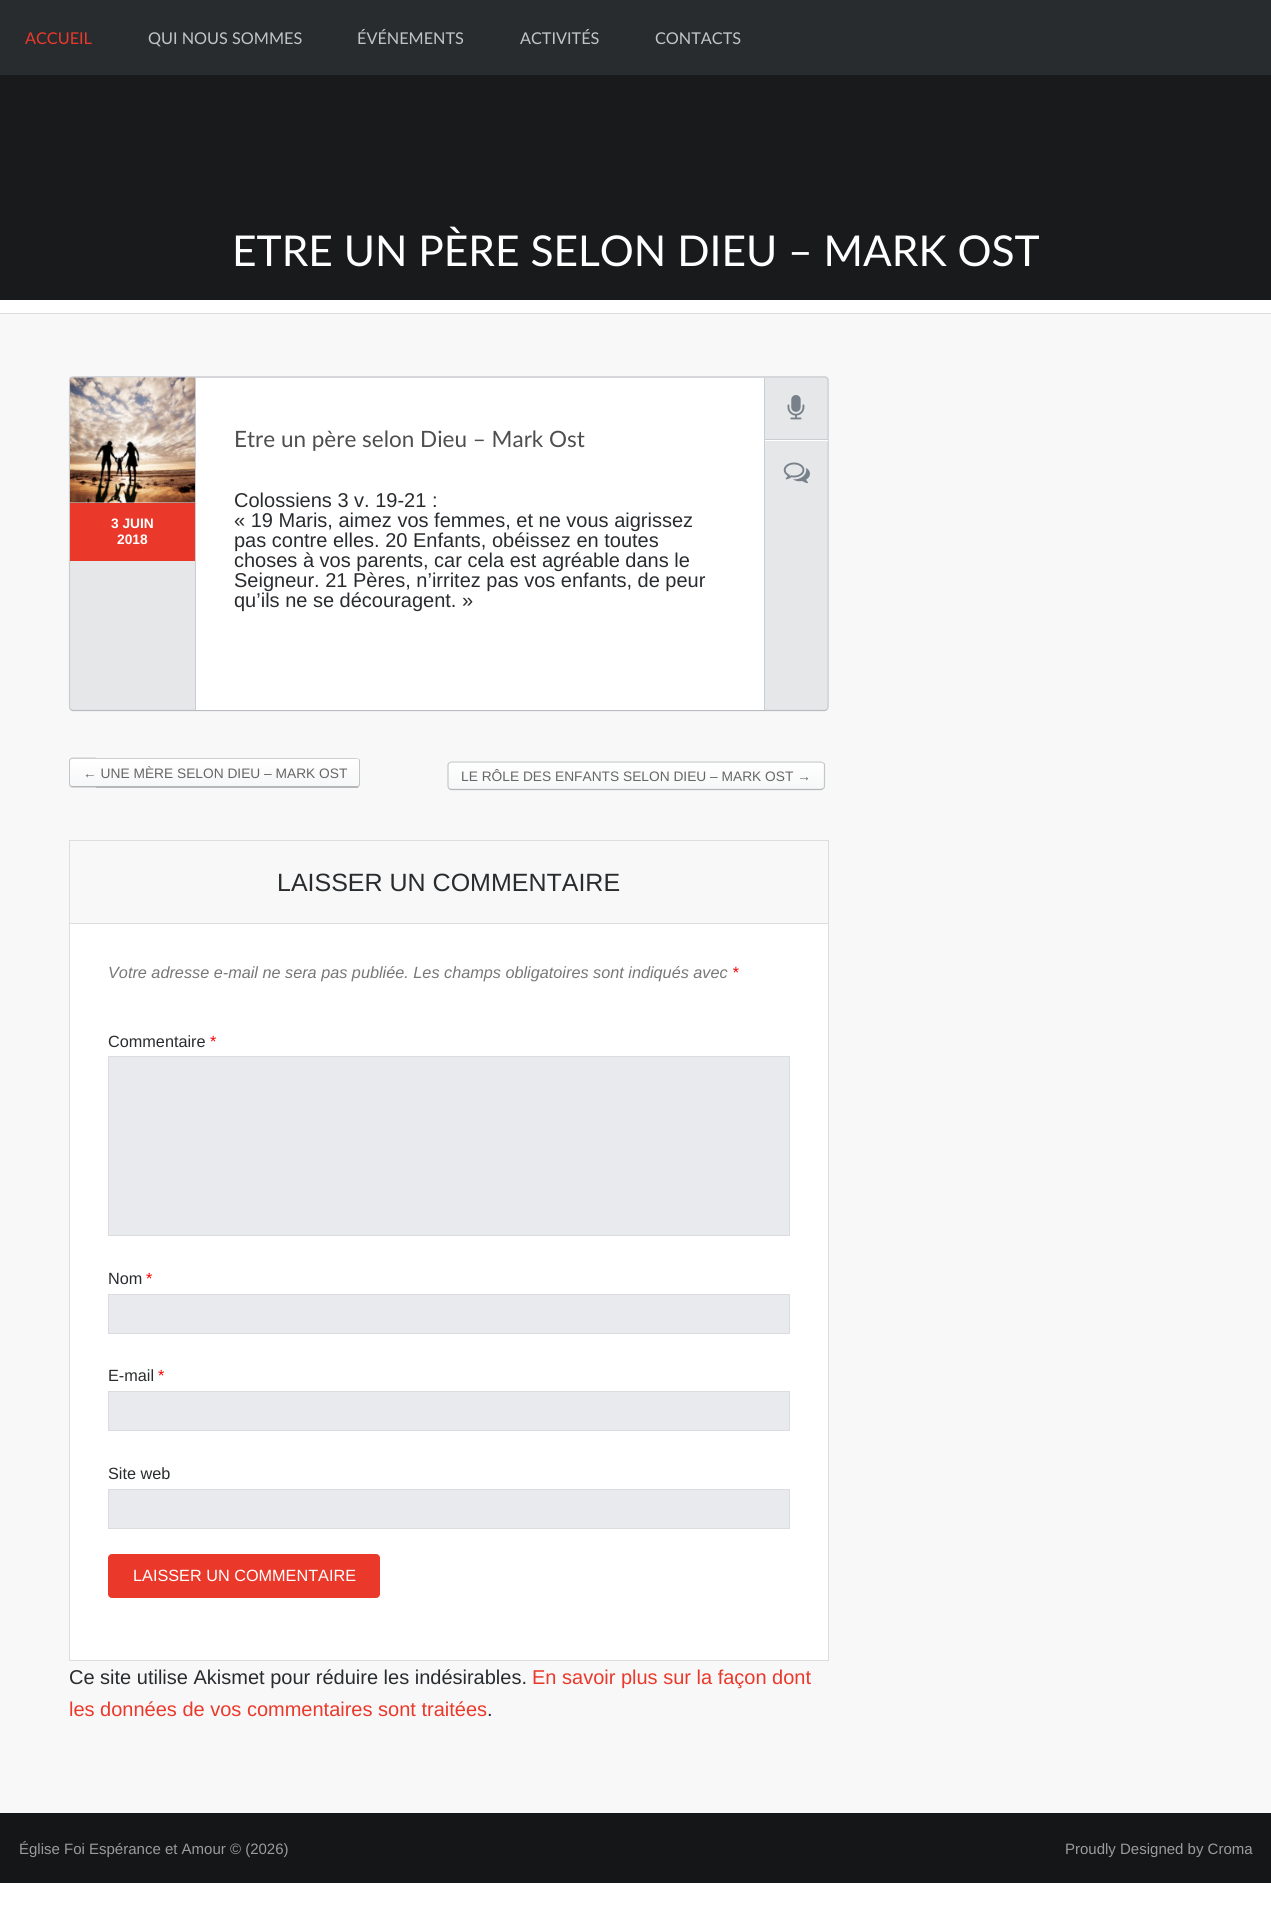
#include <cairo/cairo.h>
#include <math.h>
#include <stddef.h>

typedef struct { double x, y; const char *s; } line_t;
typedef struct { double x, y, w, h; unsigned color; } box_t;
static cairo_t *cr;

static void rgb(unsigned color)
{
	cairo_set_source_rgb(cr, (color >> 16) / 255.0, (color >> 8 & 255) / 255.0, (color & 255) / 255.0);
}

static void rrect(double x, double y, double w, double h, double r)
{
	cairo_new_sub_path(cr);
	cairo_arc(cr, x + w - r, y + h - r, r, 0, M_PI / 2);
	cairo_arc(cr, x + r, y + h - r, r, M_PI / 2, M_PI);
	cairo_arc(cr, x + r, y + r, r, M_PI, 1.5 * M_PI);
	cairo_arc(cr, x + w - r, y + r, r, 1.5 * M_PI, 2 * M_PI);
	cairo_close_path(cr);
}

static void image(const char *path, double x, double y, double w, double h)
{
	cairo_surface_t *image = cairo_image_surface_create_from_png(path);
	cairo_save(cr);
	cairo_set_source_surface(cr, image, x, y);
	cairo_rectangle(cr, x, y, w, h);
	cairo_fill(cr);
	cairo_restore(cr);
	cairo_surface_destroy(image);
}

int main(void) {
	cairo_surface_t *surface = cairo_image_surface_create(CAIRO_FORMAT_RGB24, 1271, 1907);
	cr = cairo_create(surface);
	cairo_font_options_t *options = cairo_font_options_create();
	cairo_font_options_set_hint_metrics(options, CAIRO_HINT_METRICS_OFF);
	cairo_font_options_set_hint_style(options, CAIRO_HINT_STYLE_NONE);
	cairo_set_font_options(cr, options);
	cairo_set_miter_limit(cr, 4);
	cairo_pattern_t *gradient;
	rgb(0xffffff);
	cairo_paint(cr);
	{
		static const box_t items[] = {
			{0, 314, 1271, 1499, 0xf8f8f8},
			{0, 0, 1271, 75, 0x292c2f},
			{0, 75, 1271, 225, 0x191a1c},
			{0, 313, 1271, 1, 0xdcdee1},
		};
		for (size_t i = 0; i < sizeof items / sizeof *items; i++) {
			rgb(items[i].color);
			cairo_rectangle(cr, items[i].x, items[i].y, items[i].w, items[i].h);
			cairo_fill(cr);
		}
	}
	rgb(0xe5e7e8);
	rrect(69, 376, 760, 335, 4);
	cairo_fill(cr);
	cairo_new_path(cr);
	cairo_move_to(cr, 827, 709.5);
	cairo_line_to(cr, 825, 710.5);
	cairo_line_to(cr, 72.5, 710.5);
	cairo_line_to(cr, 70.5, 709.5);
	rgb(0xb8bcc1);
	cairo_set_line_width(cr, 1.2);
	cairo_stroke(cr);
	cairo_new_path(cr);
	cairo_move_to(cr, 70.5, 709.5);
	cairo_line_to(cr, 69.5, 707.5);
	cairo_line_to(cr, 69.5, 380);
	cairo_line_to(cr, 70.5, 378);
	cairo_line_to(cr, 72.5, 377);
	cairo_line_to(cr, 825, 377);
	cairo_line_to(cr, 827, 378);
	cairo_line_to(cr, 828, 380);
	cairo_line_to(cr, 828, 707.5);
	cairo_line_to(cr, 827, 709.5);
	rgb(0xcacdd1);
	cairo_stroke(cr);
	image("img/1.png", 70, 377, 125, 126);
	{
		static const box_t items[] = {
			{70, 503, 125, 58, 0xea392b},
			{196, 378, 568, 332, 0xffffff},
			{764, 378, 1, 332, 0xcacdd1},
			{195, 378, 1, 332, 0xcacdd1},
			{765, 439, 63, 1, 0xcacdd1},
		};
		for (size_t i = 0; i < sizeof items / sizeof *items; i++) {
			rgb(items[i].color);
			cairo_rectangle(cr, items[i].x, items[i].y, items[i].w, items[i].h);
			cairo_fill(cr);
		}
	}
	image("img/2.png", 787, 395, 18, 25);
	rgb(0xffffff);
	cairo_rectangle(cr, 765, 440, 63, 1);
	cairo_fill(cr);
	image("img/3.png", 783, 462, 27, 22);
	cairo_save(cr);
	cairo_new_path(cr);
	cairo_move_to(cr, 73, 758);
	cairo_line_to(cr, 96, 758);
	cairo_line_to(cr, 96, 788);
	cairo_line_to(cr, 73, 788);
	cairo_curve_to(cr, 71, 788, 69, 786, 69, 784);
	cairo_line_to(cr, 69, 762);
	cairo_curve_to(cr, 69, 760, 71, 758, 73, 758);
	cairo_close_path(cr);
	cairo_clip(cr);
	gradient = cairo_pattern_create_linear(83, 759, 83, 786);
	cairo_pattern_add_color_stop_rgba(gradient, 0, 1, 1, 1, 1);
	cairo_pattern_add_color_stop_rgba(gradient, 1, 0.965, 0.969, 0.973, 1);
	cairo_set_source(cr, gradient);
	cairo_pattern_destroy(gradient);
	cairo_rectangle(cr, 69, 759, 27, 27);
	cairo_fill(cr);
	gradient = cairo_pattern_create_linear(83, 786, 83, 814);
	cairo_pattern_add_color_stop_rgba(gradient, 0, 1, 1, 1, 1);
	cairo_pattern_add_color_stop_rgba(gradient, 1, 0.965, 0.969, 0.973, 1);
	cairo_set_source(cr, gradient);
	cairo_pattern_destroy(gradient);
	cairo_rectangle(cr, 69, 786, 27, 2);
	cairo_fill(cr);
	cairo_restore(cr);
	rgb(0xcdced0);
	cairo_new_path(cr);
	cairo_move_to(cr, 72.5, 757.5);
	cairo_line_to(cr, 96, 757.5);
	cairo_line_to(cr, 96, 759);
	cairo_line_to(cr, 72.5, 759);
	cairo_curve_to(cr, 72, 759, 71, 759, 71, 759.5);
	cairo_line_to(cr, 70, 758.5);
	cairo_curve_to(cr, 70.5, 758, 71.5, 757.5, 72.5, 757.5);
	cairo_close_path(cr);
	cairo_fill(cr);
	rgb(0xb6b7b9);
	cairo_new_path(cr);
	cairo_move_to(cr, 72.5, 787.5);
	cairo_line_to(cr, 96, 787.5);
	cairo_line_to(cr, 96, 786);
	cairo_line_to(cr, 72.5, 786);
	cairo_curve_to(cr, 72, 786, 71, 786, 71, 785.5);
	cairo_line_to(cr, 70, 786.5);
	cairo_curve_to(cr, 70.5, 787, 71.5, 787.5, 72.5, 787.5);
	cairo_close_path(cr);
	cairo_fill(cr);
	rgb(0xc5c6c8);
	cairo_new_path(cr);
	cairo_move_to(cr, 71, 785.5);
	cairo_line_to(cr, 70, 786.5);
	cairo_curve_to(cr, 69.5, 786, 69, 785, 69, 784);
	cairo_line_to(cr, 69, 761);
	cairo_curve_to(cr, 69, 760, 69.5, 759, 70, 758.5);
	cairo_line_to(cr, 71, 759.5);
	cairo_curve_to(cr, 70.5, 760, 70, 760.5, 70, 761);
	cairo_line_to(cr, 70, 784);
	cairo_curve_to(cr, 70, 784.5, 70.5, 785, 71, 785.5);
	cairo_close_path(cr);
	cairo_fill(cr);
	cairo_save(cr);
	cairo_new_path(cr);
	cairo_move_to(cr, 96, 758);
	cairo_line_to(cr, 356, 758);
	cairo_curve_to(cr, 358, 758, 360, 760, 360, 762);
	cairo_line_to(cr, 360, 784);
	cairo_curve_to(cr, 360, 786, 358, 788, 356, 788);
	cairo_line_to(cr, 96, 788);
	cairo_close_path(cr);
	cairo_clip(cr);
	gradient = cairo_pattern_create_linear(228, 759, 228, 786);
	cairo_pattern_add_color_stop_rgba(gradient, 0, 1, 1, 1, 1);
	cairo_pattern_add_color_stop_rgba(gradient, 1, 0.965, 0.969, 0.973, 1);
	cairo_set_source(cr, gradient);
	cairo_pattern_destroy(gradient);
	cairo_rectangle(cr, 96, 759, 264, 27);
	cairo_fill(cr);
	cairo_restore(cr);
	rgb(0xcdced0);
	cairo_new_path(cr);
	cairo_move_to(cr, 96, 759);
	cairo_line_to(cr, 96, 758);
	cairo_line_to(cr, 356, 758);
	cairo_line_to(cr, 359, 759);
	cairo_line_to(cr, 358, 759);
	cairo_line_to(cr, 356, 759);
	cairo_close_path(cr);
	cairo_fill(cr);
	rgb(0xc5c6c8);
	cairo_new_path(cr);
	cairo_move_to(cr, 359, 759);
	cairo_curve_to(cr, 359.5, 759, 360, 760, 360, 761);
	cairo_line_to(cr, 360, 784);
	cairo_curve_to(cr, 360, 785, 359.5, 786, 359, 786.5);
	cairo_line_to(cr, 358, 785.5);
	cairo_curve_to(cr, 358.5, 785, 359, 784.5, 359, 784);
	cairo_line_to(cr, 359, 761);
	cairo_curve_to(cr, 359, 760.5, 358.5, 760, 358, 759.5);
	cairo_close_path(cr);
	cairo_fill(cr);
	rgb(0xb6b7b9);
	cairo_new_path(cr);
	cairo_move_to(cr, 96, 786);
	cairo_line_to(cr, 356, 786);
	cairo_line_to(cr, 358, 786);
	cairo_line_to(cr, 359, 786);
	cairo_line_to(cr, 358, 788);
	cairo_line_to(cr, 96, 788);
	cairo_close_path(cr);
	cairo_fill(cr);
	cairo_save(cr);
	rrect(448, 761, 377, 29, 4);
	cairo_clip(cr);
	gradient = cairo_pattern_create_linear(636, 763, 636, 789);
	cairo_pattern_add_color_stop_rgba(gradient, 0, 1, 1, 1, 1);
	cairo_pattern_add_color_stop_rgba(gradient, 1, 0.965, 0.969, 0.973, 1);
	cairo_set_source(cr, gradient);
	cairo_pattern_destroy(gradient);
	cairo_rectangle(cr, 448, 763, 377, 26);
	cairo_fill(cr);
	cairo_restore(cr);
	cairo_new_path(cr);
	cairo_move_to(cr, 449, 763);
	cairo_line_to(cr, 451, 762);
	cairo_line_to(cr, 821, 762);
	cairo_line_to(cr, 823.5, 763);
	rgb(0xcdced0);
	cairo_stroke(cr);
	cairo_new_path(cr);
	cairo_move_to(cr, 823.5, 763);
	cairo_curve_to(cr, 824, 763.5, 824.5, 764, 824.5, 765);
	cairo_line_to(cr, 824.5, 786);
	cairo_curve_to(cr, 824.5, 787, 824, 788, 823.5, 788.5);
	rgb(0xc5c6c8);
	cairo_stroke(cr);
	cairo_new_path(cr);
	cairo_move_to(cr, 823.5, 788.5);
	cairo_line_to(cr, 821, 789.5);
	cairo_line_to(cr, 451, 789.5);
	cairo_line_to(cr, 449, 788.5);
	rgb(0xb6b7b9);
	cairo_stroke(cr);
	cairo_new_path(cr);
	cairo_move_to(cr, 449, 788.5);
	cairo_curve_to(cr, 448.5, 788, 448, 787, 448, 786);
	cairo_line_to(cr, 448, 765);
	cairo_curve_to(cr, 448, 764, 448.5, 763.5, 449, 763);
	rgb(0xc5c6c8);
	cairo_stroke(cr);
	{
		static const box_t items[] = {
			{69, 840, 760, 1, 0xdddddd},
			{828, 840, 1, 83, 0xdddddd},
			{69, 840, 1, 83, 0xdddddd},
		};
		for (size_t i = 0; i < sizeof items / sizeof *items; i++) {
			rgb(items[i].color);
			cairo_rectangle(cr, items[i].x, items[i].y, items[i].w, items[i].h);
			cairo_fill(cr);
		}
	}
	rgb(0xffffff);
	cairo_rectangle(cr, 69.5, 923.5, 759, 737);
	cairo_fill_preserve(cr);
	rgb(0xdddddd);
	cairo_set_line_width(cr, 1);
	cairo_stroke(cr);
	rgb(0xe9eaed);
	cairo_rectangle(cr, 108.5, 1056.5, 681, 179);
	cairo_fill_preserve(cr);
	rgb(0xdadce0);
	cairo_stroke(cr);
	rgb(0xe9eaed);
	cairo_rectangle(cr, 108.5, 1294.5, 681, 39);
	cairo_fill_preserve(cr);
	rgb(0xdadce0);
	cairo_stroke(cr);
	rgb(0xe9eaed);
	cairo_rectangle(cr, 108.5, 1391.5, 681, 39);
	cairo_fill_preserve(cr);
	rgb(0xdadce0);
	cairo_stroke(cr);
	rgb(0xe9eaed);
	cairo_rectangle(cr, 108.5, 1489.5, 681, 39);
	cairo_fill_preserve(cr);
	rgb(0xdadce0);
	cairo_stroke(cr);
	rgb(0xea392b);
	rrect(108, 1554, 272, 44, 4);
	cairo_fill(cr);
	rgb(0x151618);
	cairo_rectangle(cr, 0, 1813, 1271, 70);
	cairo_fill(cr);
	cairo_select_font_face(cr, "Lato", CAIRO_FONT_SLANT_NORMAL, CAIRO_FONT_WEIGHT_NORMAL);
	cairo_set_font_size(cr, 16.25);
	rgb(0xea392b);
	cairo_move_to(cr, 25, 44);
	cairo_show_text(cr, "ACCUEIL");
	rgb(0xc1c5c9);
	{
		static const line_t items[] = {
			{148, 44, "QUI NOUS SOMMES"},
			{357, 44, "ÉVÉNEMENTS"},
			{520, 44, "ACTIVITÉS"},
			{655, 44, "CONTACTS"},
		};
		for (size_t i = 0; i < sizeof items / sizeof *items; i++) {
			cairo_move_to(cr, items[i].x, items[i].y);
			cairo_show_text(cr, items[i].s);
		}
	}
	cairo_set_font_size(cr, 42.5);
	rgb(0xffffff);
	cairo_move_to(cr, 232, 266);
	cairo_show_text(cr, "ETRE UN PÈRE SELON DIEU – MARK OST");
	cairo_select_font_face(cr, "Liberation Sans", CAIRO_FONT_SLANT_NORMAL, CAIRO_FONT_WEIGHT_BOLD);
	cairo_set_font_size(cr, 13.75);
	cairo_move_to(cr, 111, 528);
	cairo_show_text(cr, "3 JUIN");
	cairo_move_to(cr, 117, 544);
	cairo_show_text(cr, "2018");
	cairo_select_font_face(cr, "Lato", CAIRO_FONT_SLANT_NORMAL, CAIRO_FONT_WEIGHT_NORMAL);
	cairo_set_font_size(cr, 22.5);
	rgb(0x4e4e4e);
	cairo_move_to(cr, 234, 447);
	cairo_show_text(cr, "Etre un père selon Dieu – Mark Ost");
	cairo_select_font_face(cr, "Liberation Sans", CAIRO_FONT_SLANT_NORMAL, CAIRO_FONT_WEIGHT_NORMAL);
	cairo_set_font_size(cr, 20);
	rgb(0x292c2f);
	{
		static const line_t items[] = {
			{234, 507, "Colossiens 3 v. 19-21 :"},
			{234, 527, "« 19 Maris, aimez vos femmes, et ne vous aigrissez"},
			{234, 547, "pas contre elles. 20 Enfants, obéissez en toutes"},
			{234, 567, "choses à vos parents, car cela est agréable dans le"},
			{234, 587, "Seigneur. 21 Pères, n’irritez pas vos enfants, de peur"},
			{234, 607, "qu’ils ne se découragent. »"},
		};
		for (size_t i = 0; i < sizeof items / sizeof *items; i++) {
			cairo_move_to(cr, items[i].x, items[i].y);
			cairo_show_text(cr, items[i].s);
		}
	}
	cairo_set_font_size(cr, 13.75);
	rgb(0x666666);
	cairo_move_to(cr, 83, 778);
	cairo_show_text(cr, "← UNE MÈRE SELON DIEU – MARK OST");
	cairo_move_to(cr, 461, 781);
	cairo_show_text(cr, "LE RÔLE DES ENFANTS SELON DIEU – MARK OST →");
	cairo_set_font_size(cr, 25);
	rgb(0x292c2f);
	cairo_move_to(cr, 277, 891);
	cairo_show_text(cr, "LAISSER UN COMMENTAIRE");
	cairo_select_font_face(cr, "Liberation Sans", CAIRO_FONT_SLANT_ITALIC, CAIRO_FONT_WEIGHT_NORMAL);
	cairo_set_font_size(cr, 16.25);
	rgb(0x777777);
	cairo_move_to(cr, 108, 978);
	cairo_show_text(cr, "Votre adresse e-mail ne sera pas publiée. Les champs obligatoires sont indiqués avec");
	rgb(0xff0000);
	cairo_move_to(cr, 732, 978);
	cairo_show_text(cr, "*");
	cairo_select_font_face(cr, "Liberation Sans", CAIRO_FONT_SLANT_NORMAL, CAIRO_FONT_WEIGHT_NORMAL);
	rgb(0x292c2f);
	cairo_move_to(cr, 108, 1047);
	cairo_show_text(cr, "Commentaire");
	rgb(0xff0000);
	cairo_move_to(cr, 210, 1047);
	cairo_show_text(cr, "*");
	rgb(0x292c2f);
	cairo_move_to(cr, 108, 1284);
	cairo_show_text(cr, "Nom");
	rgb(0xff0000);
	cairo_move_to(cr, 146, 1284);
	cairo_show_text(cr, "*");
	rgb(0x292c2f);
	cairo_move_to(cr, 108, 1381);
	cairo_show_text(cr, "E-mail");
	rgb(0xff0000);
	cairo_move_to(cr, 158, 1381);
	cairo_show_text(cr, "*");
	rgb(0x292c2f);
	cairo_move_to(cr, 108, 1479);
	cairo_show_text(cr, "Site web");
	rgb(0xffffff);
	cairo_move_to(cr, 133, 1581);
	cairo_show_text(cr, "LAISSER UN COMMENTAIRE");
	cairo_set_font_size(cr, 20);
	rgb(0x292c2f);
	cairo_move_to(cr, 69, 1684);
	cairo_show_text(cr, "Ce site utilise Akismet pour réduire les indésirables.");
	rgb(0xea392b);
	cairo_move_to(cr, 532, 1684);
	cairo_show_text(cr, "En savoir plus sur la façon dont");
	cairo_move_to(cr, 69, 1716);
	cairo_show_text(cr, "les données de vos commentaires sont traitées");
	rgb(0x292c2f);
	cairo_move_to(cr, 487, 1716);
	cairo_show_text(cr, ".");
	cairo_set_font_size(cr, 15);
	rgb(0x9b9b9b);
	cairo_move_to(cr, 19, 1854);
	cairo_show_text(cr, "Église Foi Espérance et Amour © (2026)");
	cairo_move_to(cr, 1065, 1854);
	cairo_show_text(cr, "Proudly Designed by Croma");
	cairo_surface_write_to_png(surface, "page.png");
	cairo_font_options_destroy(options);
	cairo_destroy(cr);
	cairo_surface_destroy(surface);
	return 0;
}
